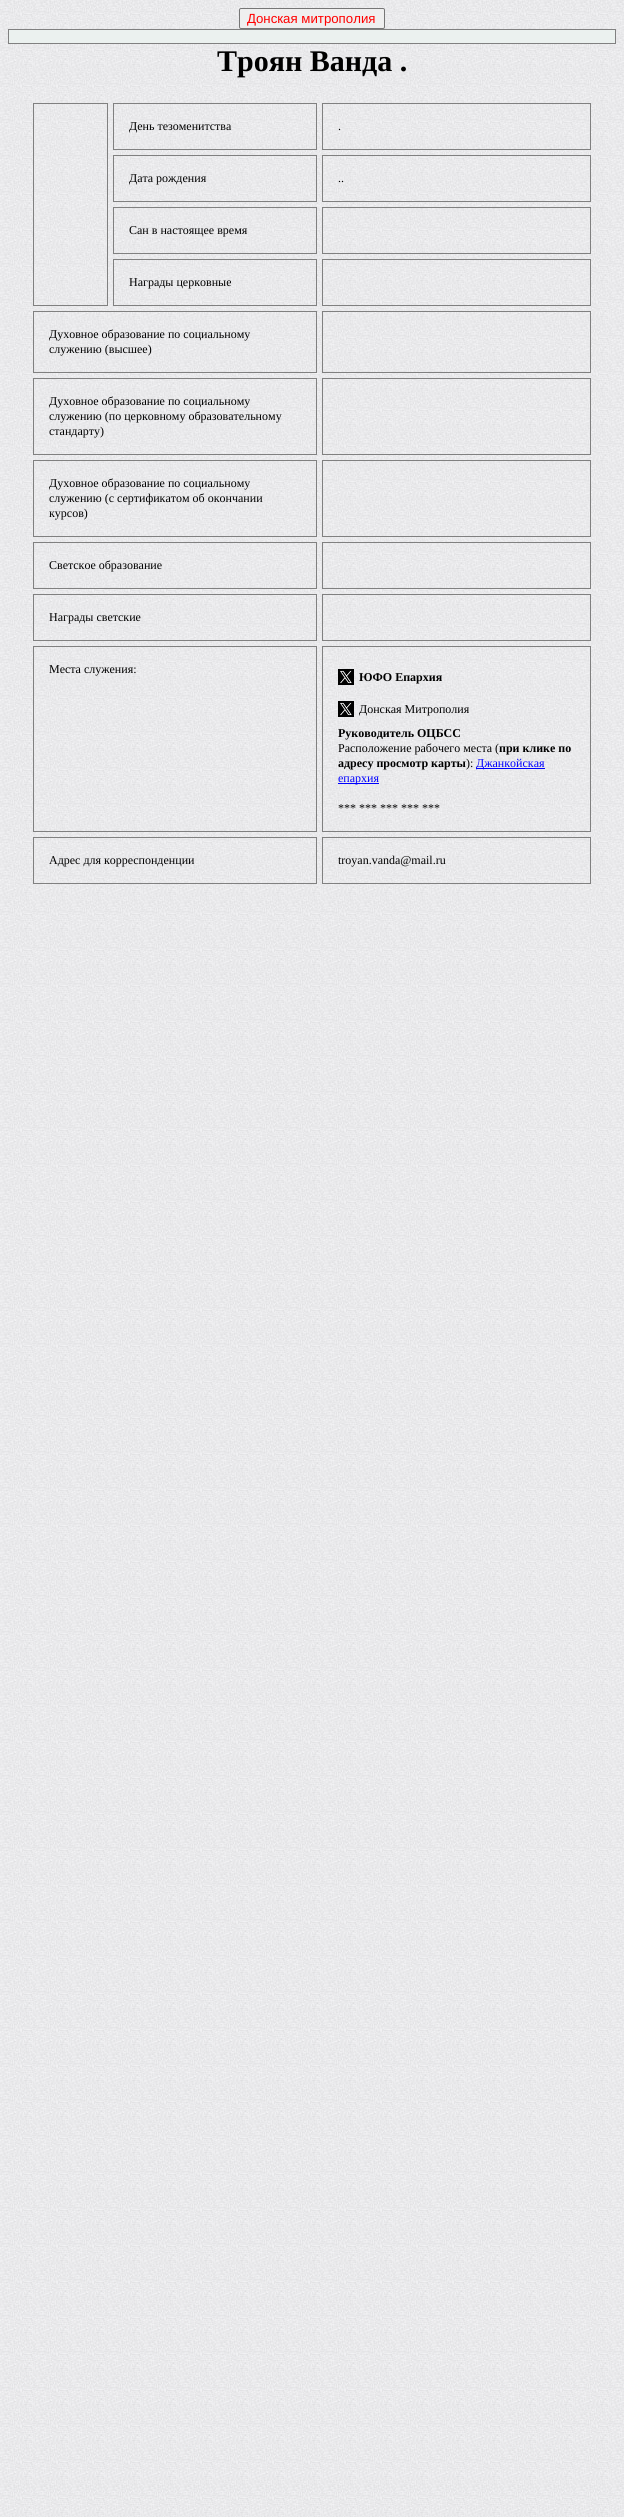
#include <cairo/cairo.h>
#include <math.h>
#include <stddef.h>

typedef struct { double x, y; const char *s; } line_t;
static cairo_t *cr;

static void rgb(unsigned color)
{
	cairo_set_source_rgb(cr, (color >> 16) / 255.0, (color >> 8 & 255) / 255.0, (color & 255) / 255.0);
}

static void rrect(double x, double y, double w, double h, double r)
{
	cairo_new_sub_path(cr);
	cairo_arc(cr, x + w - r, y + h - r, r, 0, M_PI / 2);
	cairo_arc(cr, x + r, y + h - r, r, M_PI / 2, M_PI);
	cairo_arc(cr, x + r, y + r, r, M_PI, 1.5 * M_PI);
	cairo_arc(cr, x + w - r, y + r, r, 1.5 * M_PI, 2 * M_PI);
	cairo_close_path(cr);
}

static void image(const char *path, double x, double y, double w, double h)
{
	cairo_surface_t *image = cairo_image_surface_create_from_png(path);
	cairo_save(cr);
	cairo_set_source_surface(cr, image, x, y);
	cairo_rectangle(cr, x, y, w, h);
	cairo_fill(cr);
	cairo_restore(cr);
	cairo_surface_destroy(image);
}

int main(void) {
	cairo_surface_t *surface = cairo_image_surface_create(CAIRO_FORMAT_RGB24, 624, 2517);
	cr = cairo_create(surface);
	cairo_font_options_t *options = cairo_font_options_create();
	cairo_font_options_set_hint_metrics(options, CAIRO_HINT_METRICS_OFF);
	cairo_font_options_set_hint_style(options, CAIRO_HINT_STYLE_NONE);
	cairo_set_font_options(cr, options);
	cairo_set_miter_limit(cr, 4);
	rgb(0xffffff);
	cairo_paint(cr);
	image("img/1.png", 0, 0, 624, 2517);
	rgb(0xefefef);
	rrect(239.5, 8.5, 145, 20, 1.5);
	cairo_fill_preserve(cr);
	rgb(0x767676);
	cairo_set_line_width(cr, 1);
	cairo_stroke(cr);
	rgb(0xebf1ef);
	cairo_rectangle(cr, 8.5, 29.5, 607, 14);
	cairo_fill_preserve(cr);
	rgb(0x808080);
	cairo_stroke(cr);
	cairo_rectangle(cr, 33.5, 103.5, 74, 202);
	cairo_stroke(cr);
	cairo_rectangle(cr, 113.5, 103.5, 203, 46);
	cairo_stroke(cr);
	cairo_rectangle(cr, 322.5, 103.5, 268, 46);
	cairo_stroke(cr);
	cairo_rectangle(cr, 113.5, 155.5, 203, 46);
	cairo_stroke(cr);
	cairo_rectangle(cr, 322.5, 155.5, 268, 46);
	cairo_stroke(cr);
	cairo_rectangle(cr, 113.5, 207.5, 203, 46);
	cairo_stroke(cr);
	cairo_rectangle(cr, 322.5, 207.5, 268, 46);
	cairo_stroke(cr);
	cairo_rectangle(cr, 113.5, 259.5, 203, 46);
	cairo_stroke(cr);
	cairo_rectangle(cr, 322.5, 259.5, 268, 46);
	cairo_stroke(cr);
	cairo_rectangle(cr, 33.5, 311.5, 283, 61);
	cairo_stroke(cr);
	cairo_rectangle(cr, 322.5, 311.5, 268, 61);
	cairo_stroke(cr);
	cairo_rectangle(cr, 33.5, 378.5, 283, 76);
	cairo_stroke(cr);
	cairo_rectangle(cr, 322.5, 378.5, 268, 76);
	cairo_stroke(cr);
	cairo_rectangle(cr, 33.5, 460.5, 283, 76);
	cairo_stroke(cr);
	cairo_rectangle(cr, 322.5, 460.5, 268, 76);
	cairo_stroke(cr);
	cairo_rectangle(cr, 33.5, 542.5, 283, 46);
	cairo_stroke(cr);
	cairo_rectangle(cr, 322.5, 542.5, 268, 46);
	cairo_stroke(cr);
	cairo_rectangle(cr, 33.5, 594.5, 283, 46);
	cairo_stroke(cr);
	cairo_rectangle(cr, 322.5, 594.5, 268, 46);
	cairo_stroke(cr);
	cairo_rectangle(cr, 33.5, 646.5, 283, 185);
	cairo_stroke(cr);
	cairo_rectangle(cr, 322.5, 646.5, 268, 185);
	cairo_stroke(cr);
	image("img/2.png", 338, 669, 16, 16);
	image("img/2.png", 338, 701, 16, 16);
	rgb(0x0000ff);
	cairo_rectangle(cr, 476, 768, 69, 1);
	cairo_fill(cr);
	cairo_rectangle(cr, 338, 783, 41, 1);
	cairo_fill(cr);
	cairo_rectangle(cr, 33.5, 837.5, 283, 46);
	rgb(0x808080);
	cairo_stroke(cr);
	cairo_rectangle(cr, 322.5, 837.5, 268, 46);
	cairo_stroke(cr);
	cairo_select_font_face(cr, "Liberation Sans", CAIRO_FONT_SLANT_NORMAL, CAIRO_FONT_WEIGHT_NORMAL);
	cairo_set_font_size(cr, 13.25);
	rgb(0xff0000);
	cairo_move_to(cr, 247, 23);
	cairo_show_text(cr, "Донская митрополия");
	cairo_select_font_face(cr, "Liberation Serif", CAIRO_FONT_SLANT_NORMAL, CAIRO_FONT_WEIGHT_BOLD);
	cairo_set_font_size(cr, 30);
	rgb(0x000000);
	cairo_move_to(cr, 217, 71);
	cairo_show_text(cr, "Троян Ванда .");
	cairo_select_font_face(cr, "Liberation Serif", CAIRO_FONT_SLANT_NORMAL, CAIRO_FONT_WEIGHT_NORMAL);
	cairo_set_font_size(cr, 12);
	{
		static const line_t items[] = {
			{129, 130, "День тезоменитства"},
			{338, 130, "."},
			{129, 182, "Дата рождения"},
			{338, 182, ".."},
			{129, 234, "Сан в настоящее время"},
			{129, 286, "Награды церковные"},
			{49, 338, "Духовное образование по социальному"},
			{49, 353, "служению (высшее)"},
			{49, 405, "Духовное образование по социальному"},
			{49, 420, "служению (по церковному образовательному"},
			{49, 435, "стандарту)"},
			{49, 487, "Духовное образование по социальному"},
			{49, 502, "служению (с сертификатом об окончании"},
			{49, 517, "курсов)"},
			{49, 569, "Светское образование"},
			{49, 621, "Награды светские"},
			{49, 673, "Места служения:"},
		};
		for (size_t i = 0; i < sizeof items / sizeof *items; i++) {
			cairo_move_to(cr, items[i].x, items[i].y);
			cairo_show_text(cr, items[i].s);
		}
	}
	cairo_select_font_face(cr, "Liberation Serif", CAIRO_FONT_SLANT_NORMAL, CAIRO_FONT_WEIGHT_BOLD);
	cairo_move_to(cr, 359, 681);
	cairo_show_text(cr, "ЮФО Епархия");
	cairo_select_font_face(cr, "Liberation Serif", CAIRO_FONT_SLANT_NORMAL, CAIRO_FONT_WEIGHT_NORMAL);
	cairo_move_to(cr, 359, 713);
	cairo_show_text(cr, "Донская Митрополия");
	cairo_select_font_face(cr, "Liberation Serif", CAIRO_FONT_SLANT_NORMAL, CAIRO_FONT_WEIGHT_BOLD);
	cairo_move_to(cr, 338, 737);
	cairo_show_text(cr, "Руководитель ОЦБСС");
	cairo_select_font_face(cr, "Liberation Serif", CAIRO_FONT_SLANT_NORMAL, CAIRO_FONT_WEIGHT_NORMAL);
	cairo_move_to(cr, 338, 752);
	cairo_show_text(cr, "Расположение рабочего места (");
	cairo_select_font_face(cr, "Liberation Serif", CAIRO_FONT_SLANT_NORMAL, CAIRO_FONT_WEIGHT_BOLD);
	cairo_move_to(cr, 499, 752);
	cairo_show_text(cr, "при клике по");
	cairo_move_to(cr, 338, 767);
	cairo_show_text(cr, "адресу просмотр карты");
	cairo_select_font_face(cr, "Liberation Serif", CAIRO_FONT_SLANT_NORMAL, CAIRO_FONT_WEIGHT_NORMAL);
	cairo_move_to(cr, 466, 767);
	cairo_show_text(cr, "):");
	rgb(0x0000ff);
	cairo_move_to(cr, 476, 767);
	cairo_show_text(cr, "Джанкойская");
	cairo_move_to(cr, 338, 782);
	cairo_show_text(cr, "епархия");
	rgb(0x000000);
	{
		static const line_t items[] = {
			{338, 812, "*** *** *** *** ***"},
			{49, 864, "Адрес для корреспонденции"},
			{338, 864, "troyan.vanda@mail.ru"},
		};
		for (size_t i = 0; i < sizeof items / sizeof *items; i++) {
			cairo_move_to(cr, items[i].x, items[i].y);
			cairo_show_text(cr, items[i].s);
		}
	}
	cairo_surface_write_to_png(surface, "page.png");
	cairo_font_options_destroy(options);
	cairo_destroy(cr);
	cairo_surface_destroy(surface);
	return 0;
}
